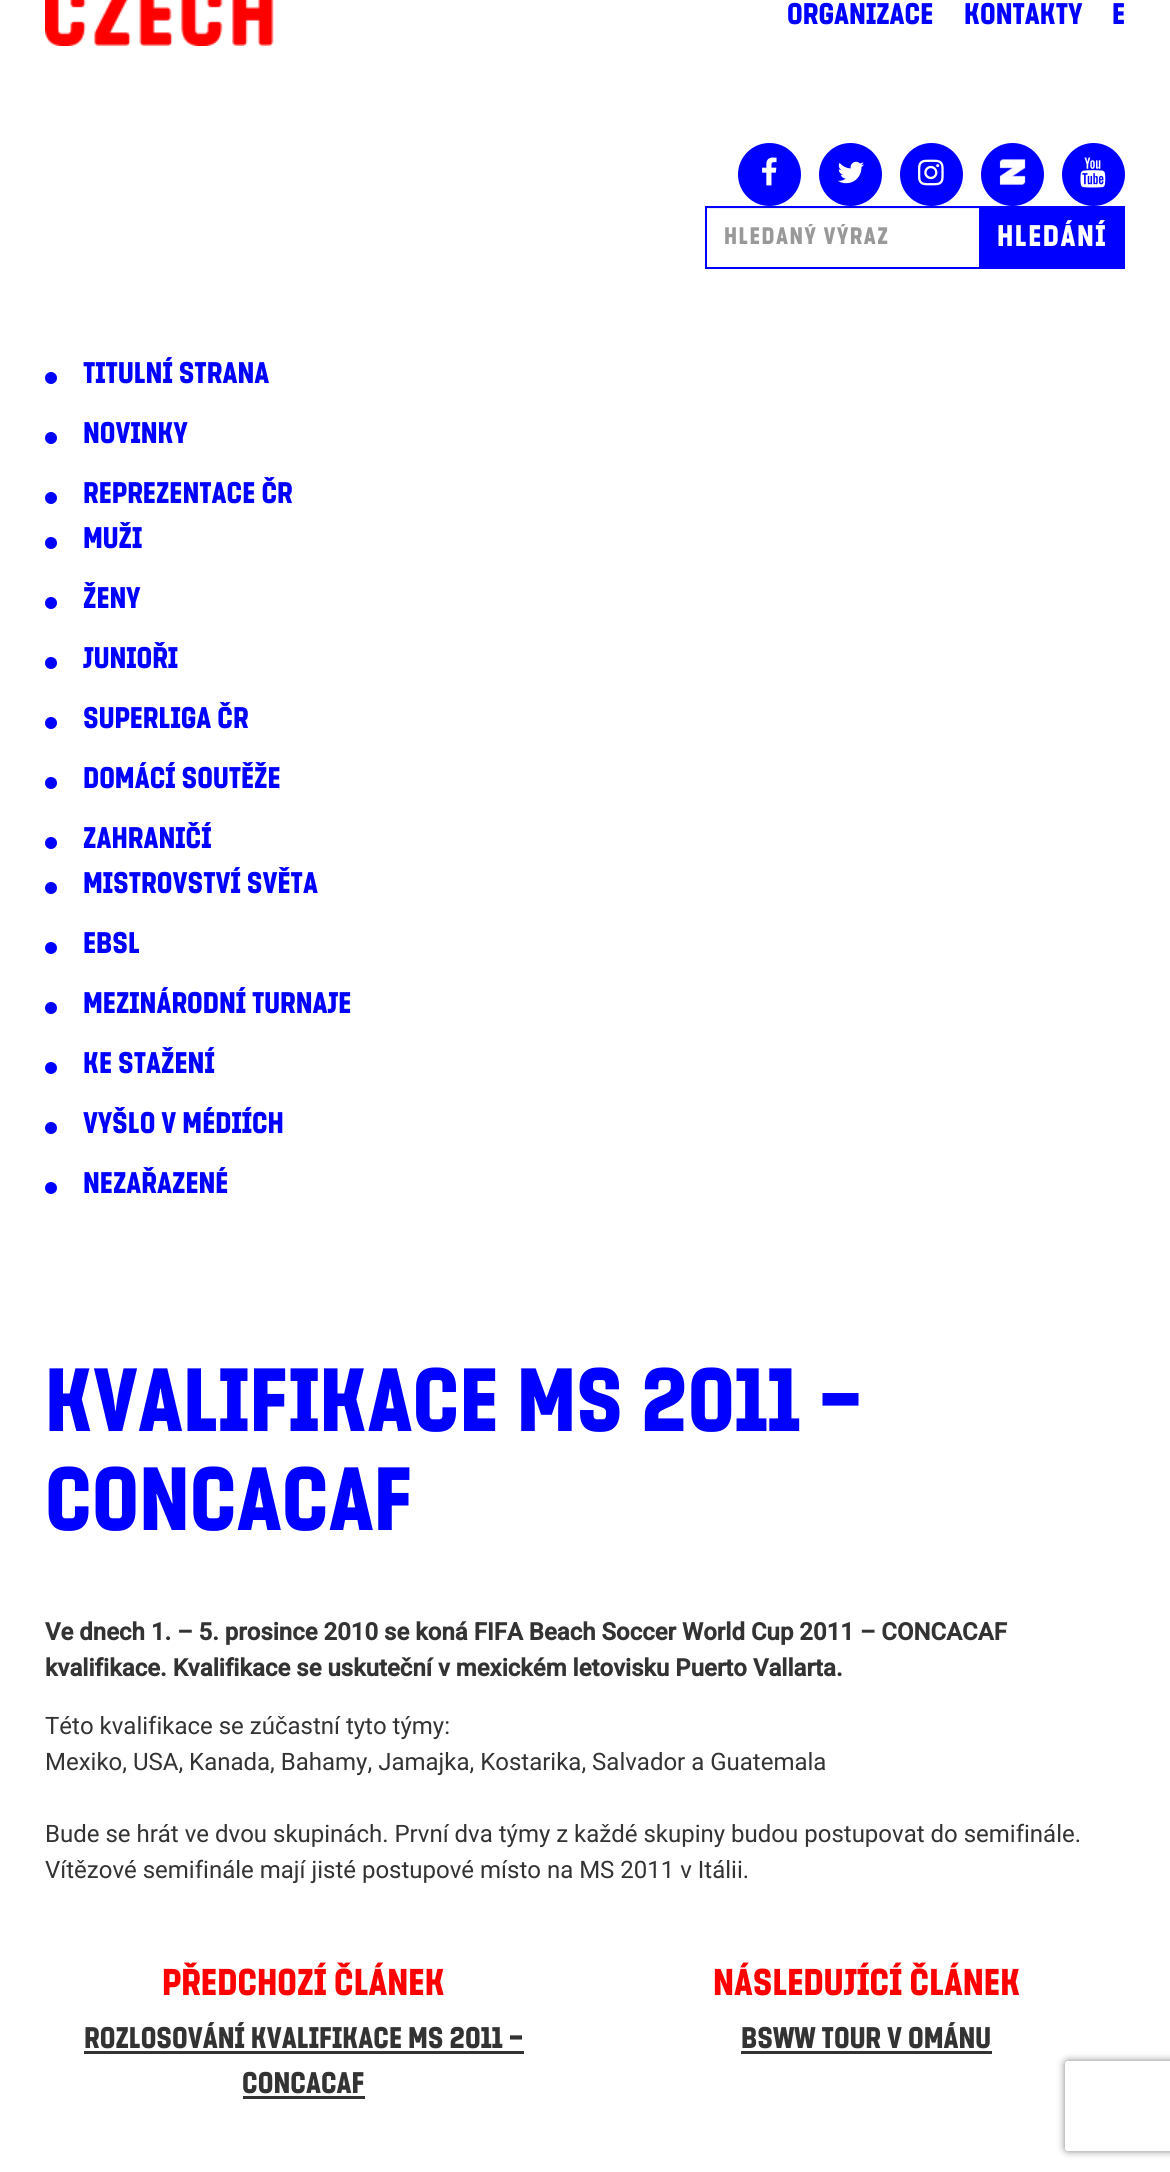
#include <cairo/cairo.h>
#include <math.h>
#include <stddef.h>

typedef struct { double x, y; const char *s; } line_t;
typedef struct { double x, y, w, h; unsigned color; } box_t;
static cairo_t *cr;

static void rgb(unsigned color)
{
	cairo_set_source_rgb(cr, (color >> 16) / 255.0, (color >> 8 & 255) / 255.0, (color & 255) / 255.0);
}

static void tracked(double x, double y, const char *s, double letter, double word)
{
	cairo_move_to(cr, x, y);
	while (*s) {
		char ch[5] = {0};
		int n = 0;
		do ch[n++] = *s++; while ((*s & 0xC0) == 0x80);
		cairo_show_text(cr, ch);
		cairo_rel_move_to(cr, letter + word * (*ch == ' '), 0);
	}
}

static void rrect(double x, double y, double w, double h, double r)
{
	cairo_new_sub_path(cr);
	cairo_arc(cr, x + w - r, y + h - r, r, 0, M_PI / 2);
	cairo_arc(cr, x + r, y + h - r, r, M_PI / 2, M_PI);
	cairo_arc(cr, x + r, y + r, r, M_PI, 1.5 * M_PI);
	cairo_arc(cr, x + w - r, y + r, r, 1.5 * M_PI, 2 * M_PI);
	cairo_close_path(cr);
}

static void soft_shadow(double x, double y, double w, double h, double r, double blur, double alpha)
{
	cairo_push_group_with_content(cr, CAIRO_CONTENT_ALPHA);
	cairo_set_operator(cr, CAIRO_OPERATOR_SOURCE);
	for (int i = 15; i >= -15 && fmin(w, h) + blur * i / 3 > 0; i -= 2) {
		double e = blur * i / 6;
		cairo_set_source_rgba(cr, 0, 0, 0, alpha * erfc((i - 1) / 8.5) / 2);
		rrect(x - e, y - e, w + 2 * e, h + 2 * e, fmax(0, fmin(r + e + blur * .6, fmin(w, h) / 2 + e)));
		cairo_fill(cr);
	}
	cairo_pattern_t *soft = cairo_pop_group(cr);
	cairo_mask(cr, soft);
	cairo_pattern_destroy(soft);
}

static void image(const char *path, double x, double y, double w, double h)
{
	cairo_surface_t *image = cairo_image_surface_create_from_png(path);
	cairo_save(cr);
	cairo_set_source_surface(cr, image, x, y);
	cairo_rectangle(cr, x, y, w, h);
	cairo_fill(cr);
	cairo_restore(cr);
	cairo_surface_destroy(image);
}

int main(void) {
	cairo_surface_t *surface = cairo_image_surface_create(CAIRO_FORMAT_RGB24, 1170, 2172);
	cr = cairo_create(surface);
	cairo_font_options_t *options = cairo_font_options_create();
	cairo_font_options_set_hint_metrics(options, CAIRO_HINT_METRICS_OFF);
	cairo_font_options_set_hint_style(options, CAIRO_HINT_STYLE_NONE);
	cairo_set_font_options(cr, options);
	cairo_set_miter_limit(cr, 4);
	rgb(0xffffff);
	cairo_paint(cr);
	image("img/1.png", 45, 0, 229, 46);
	rgb(0x0000ff);
	cairo_arc(cr, 769.5, 174.5, 31.5, 0, 2 * M_PI);
	cairo_fill(cr);
	image("img/2.png", 762, 157, 15, 29);
	cairo_arc(cr, 850.5, 174.5, 31.5, 0, 2 * M_PI);
	cairo_fill(cr);
	image("img/3.png", 838, 161, 26, 23);
	cairo_arc(cr, 931.5, 174.5, 31.5, 0, 2 * M_PI);
	cairo_fill(cr);
	image("img/4.png", 918, 159, 26, 27);
	cairo_arc(cr, 1012.5, 174.5, 31.5, 0, 2 * M_PI);
	cairo_fill(cr);
	image("img/5.png", 999, 159, 27, 26);
	cairo_arc(cr, 1093.5, 174.5, 31.5, 0, 2 * M_PI);
	cairo_fill(cr);
	image("img/6.png", 1080, 157, 26, 31);
	rgb(0xececec);
	cairo_rectangle(cr, 707, 208, 273, 1);
	cairo_fill(cr);
	cairo_rectangle(cr, 706, 207, 274, 61);
	rgb(0x0000ff);
	cairo_stroke(cr);
	cairo_rectangle(cr, 981, 206, 144, 63);
	cairo_fill(cr);
	cairo_arc(cr, 51, 378, 6, 0, 2 * M_PI);
	cairo_fill(cr);
	cairo_arc(cr, 51, 438, 6, 0, 2 * M_PI);
	cairo_fill(cr);
	cairo_arc(cr, 51, 498, 6, 0, 2 * M_PI);
	cairo_fill(cr);
	cairo_arc(cr, 51, 543, 6, 0, 2 * M_PI);
	cairo_fill(cr);
	cairo_arc(cr, 51, 603, 6, 0, 2 * M_PI);
	cairo_fill(cr);
	cairo_arc(cr, 51, 663, 6, 0, 2 * M_PI);
	cairo_fill(cr);
	cairo_arc(cr, 51, 723, 6, 0, 2 * M_PI);
	cairo_fill(cr);
	cairo_arc(cr, 51, 783, 6, 0, 2 * M_PI);
	cairo_fill(cr);
	cairo_arc(cr, 51, 843, 6, 0, 2 * M_PI);
	cairo_fill(cr);
	cairo_arc(cr, 51, 888, 6, 0, 2 * M_PI);
	cairo_fill(cr);
	cairo_arc(cr, 51, 948, 6, 0, 2 * M_PI);
	cairo_fill(cr);
	cairo_arc(cr, 51, 1008, 6, 0, 2 * M_PI);
	cairo_fill(cr);
	cairo_arc(cr, 51, 1068, 6, 0, 2 * M_PI);
	cairo_fill(cr);
	cairo_arc(cr, 51, 1128, 6, 0, 2 * M_PI);
	cairo_fill(cr);
	cairo_arc(cr, 51, 1188, 6, 0, 2 * M_PI);
	cairo_fill(cr);
	{
		static const box_t items[] = {
			{84, 2051, 440, 3, 0x333333},
			{243, 2096, 122, 3, 0x333333},
			{741, 2051, 251, 3, 0x333333},
		};
		for (size_t i = 0; i < sizeof items / sizeof *items; i++) {
			rgb(items[i].color);
			cairo_rectangle(cr, items[i].x, items[i].y, items[i].w, items[i].h);
			cairo_fill(cr);
		}
	}
	cairo_save(cr);
	cairo_set_fill_rule(cr, CAIRO_FILL_RULE_EVEN_ODD);
	cairo_new_path(cr);
	cairo_move_to(cr, 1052, 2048);
	cairo_line_to(cr, 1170, 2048);
	cairo_line_to(cr, 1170, 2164);
	cairo_line_to(cr, 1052, 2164);
	cairo_close_path(cr);
	cairo_move_to(cr, 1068, 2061);
	cairo_line_to(cr, 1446, 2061);
	cairo_curve_to(cr, 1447.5, 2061, 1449, 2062.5, 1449, 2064);
	cairo_line_to(cr, 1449, 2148);
	cairo_curve_to(cr, 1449, 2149.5, 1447.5, 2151, 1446, 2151);
	cairo_line_to(cr, 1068, 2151);
	cairo_curve_to(cr, 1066.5, 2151, 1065, 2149.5, 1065, 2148);
	cairo_line_to(cr, 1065, 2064);
	cairo_curve_to(cr, 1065, 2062.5, 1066.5, 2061, 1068, 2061);
	cairo_close_path(cr);
	cairo_clip(cr);
	rgb(0x808080);
	soft_shadow(1065, 2061, 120, 90, 3, 4, 1);
	cairo_restore(cr);
	cairo_select_font_face(cr, "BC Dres", CAIRO_FONT_SLANT_NORMAL, CAIRO_FONT_WEIGHT_NORMAL);
	cairo_set_font_size(cr, 30);
	rgb(0x0000ff);
	{
		static const line_t items[] = {
			{787, 24, "ORGANIZACE"},
			{964, 24, "KONTAKTY"},
			{1112, 24, "E"},
		};
		for (size_t i = 0; i < sizeof items / sizeof *items; i++) {
			cairo_move_to(cr, items[i].x, items[i].y);
			cairo_show_text(cr, items[i].s);
		}
	}
	cairo_save(cr);
	cairo_rectangle(cr, 725, 224, 237, 28);
	cairo_clip(cr);
	cairo_set_font_size(cr, 24);
	rgb(0x999999);
	tracked(724, 244, "HLEDANÝ VÝRAZ", 1.5, 0);
	cairo_restore(cr);
	rgb(0xffffff);
	tracked(997, 246, "HLEDÁNÍ", 1.5, 0);
	rgb(0x0000ff);
	{
		static const line_t items[] = {
			{83, 383, "TITULNÍ STRANA"},
			{83, 443, "NOVINKY"},
			{83, 503, "REPREZENTACE ČR"},
			{83, 548, "MUŽI"},
			{83, 608, "ŽENY"},
			{83, 668, "JUNIOŘI"},
			{83, 728, "SUPERLIGA ČR"},
			{83, 788, "DOMÁCÍ SOUTĚŽE"},
			{83, 848, "ZAHRANIČÍ"},
			{83, 893, "MISTROVSTVÍ SVĚTA"},
			{83, 953, "EBSL"},
			{83, 1013, "MEZINÁRODNÍ TURNAJE"},
			{83, 1073, "KE STAŽENÍ"},
			{83, 1133, "VYŠLO V MÉDIÍCH"},
			{83, 1193, "NEZAŘAZENÉ"},
		};
		for (size_t i = 0; i < sizeof items / sizeof *items; i++) {
			cairo_move_to(cr, items[i].x, items[i].y);
			cairo_show_text(cr, items[i].s);
		}
	}
	cairo_set_font_size(cr, 90);
	cairo_move_to(cr, 45, 1431);
	cairo_show_text(cr, "KVALIFIKACE MS 2011 –");
	cairo_move_to(cr, 45, 1530);
	cairo_show_text(cr, "CONCACAF");
	cairo_select_font_face(cr, "Roboto", CAIRO_FONT_SLANT_NORMAL, CAIRO_FONT_WEIGHT_BOLD);
	cairo_set_font_size(cr, 24);
	rgb(0x333333);
	cairo_move_to(cr, 45, 1640);
	cairo_show_text(cr, "Ve dnech 1. – 5. prosince 2010 se koná FIFA Beach Soccer World Cup 2011 – CONCACAF");
	cairo_move_to(cr, 45, 1676);
	cairo_show_text(cr, "kvalifikace. Kvalifikace se uskuteční v mexickém letovisku Puerto Vallarta.");
	cairo_select_font_face(cr, "Roboto", CAIRO_FONT_SLANT_NORMAL, CAIRO_FONT_WEIGHT_NORMAL);
	{
		static const line_t items[] = {
			{45, 1734, "Této kvalifikace se zúčastní tyto týmy:"},
			{45, 1770, "Mexiko, USA, Kanada, Bahamy, Jamajka, Kostarika, Salvador a Guatemala"},
			{45, 1842, "Bude se hrát ve dvou skupinách. První dva týmy z každé skupiny budou postupovat do semifinále."},
			{45, 1878, "Vítězové semifinále mají jisté postupové místo na MS 2011 v Itálii."},
		};
		for (size_t i = 0; i < sizeof items / sizeof *items; i++) {
			cairo_move_to(cr, items[i].x, items[i].y);
			cairo_show_text(cr, items[i].s);
		}
	}
	cairo_select_font_face(cr, "BC Dres", CAIRO_FONT_SLANT_NORMAL, CAIRO_FONT_WEIGHT_NORMAL);
	cairo_set_font_size(cr, 37.5);
	rgb(0xff0000);
	cairo_move_to(cr, 162, 1995);
	cairo_show_text(cr, "PŘEDCHOZÍ ČLÁNEK");
	cairo_set_font_size(cr, 30);
	rgb(0x333333);
	cairo_move_to(cr, 84, 2048);
	cairo_show_text(cr, "ROZLOSOVÁNÍ KVALIFIKACE MS 2011 –");
	cairo_move_to(cr, 242, 2093);
	cairo_show_text(cr, "CONCACAF");
	cairo_set_font_size(cr, 37.5);
	rgb(0xff0000);
	cairo_move_to(cr, 713, 1995);
	cairo_show_text(cr, "NÁSLEDUJÍCÍ ČLÁNEK");
	cairo_set_font_size(cr, 30);
	rgb(0x333333);
	cairo_move_to(cr, 741, 2048);
	cairo_show_text(cr, "BSWW TOUR V OMÁNU");
	cairo_surface_write_to_png(surface, "page.png");
	cairo_font_options_destroy(options);
	cairo_destroy(cr);
	cairo_surface_destroy(surface);
	return 0;
}
